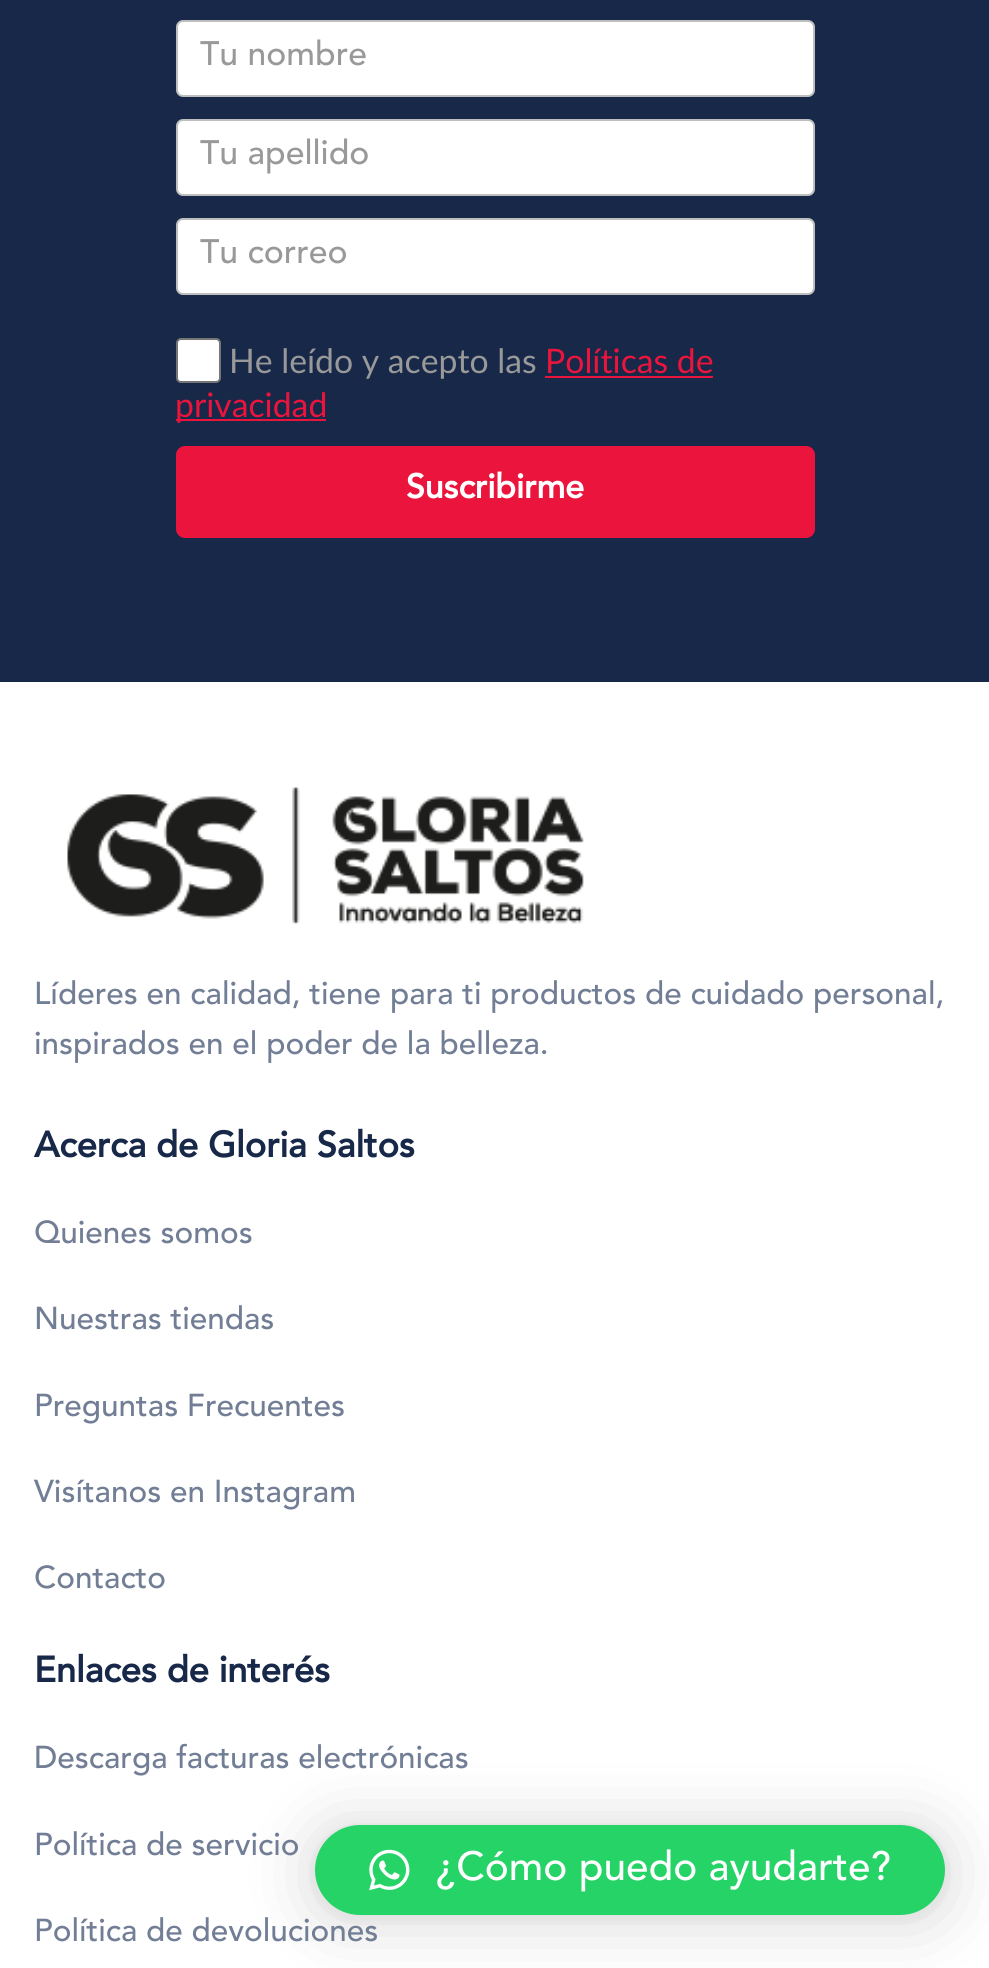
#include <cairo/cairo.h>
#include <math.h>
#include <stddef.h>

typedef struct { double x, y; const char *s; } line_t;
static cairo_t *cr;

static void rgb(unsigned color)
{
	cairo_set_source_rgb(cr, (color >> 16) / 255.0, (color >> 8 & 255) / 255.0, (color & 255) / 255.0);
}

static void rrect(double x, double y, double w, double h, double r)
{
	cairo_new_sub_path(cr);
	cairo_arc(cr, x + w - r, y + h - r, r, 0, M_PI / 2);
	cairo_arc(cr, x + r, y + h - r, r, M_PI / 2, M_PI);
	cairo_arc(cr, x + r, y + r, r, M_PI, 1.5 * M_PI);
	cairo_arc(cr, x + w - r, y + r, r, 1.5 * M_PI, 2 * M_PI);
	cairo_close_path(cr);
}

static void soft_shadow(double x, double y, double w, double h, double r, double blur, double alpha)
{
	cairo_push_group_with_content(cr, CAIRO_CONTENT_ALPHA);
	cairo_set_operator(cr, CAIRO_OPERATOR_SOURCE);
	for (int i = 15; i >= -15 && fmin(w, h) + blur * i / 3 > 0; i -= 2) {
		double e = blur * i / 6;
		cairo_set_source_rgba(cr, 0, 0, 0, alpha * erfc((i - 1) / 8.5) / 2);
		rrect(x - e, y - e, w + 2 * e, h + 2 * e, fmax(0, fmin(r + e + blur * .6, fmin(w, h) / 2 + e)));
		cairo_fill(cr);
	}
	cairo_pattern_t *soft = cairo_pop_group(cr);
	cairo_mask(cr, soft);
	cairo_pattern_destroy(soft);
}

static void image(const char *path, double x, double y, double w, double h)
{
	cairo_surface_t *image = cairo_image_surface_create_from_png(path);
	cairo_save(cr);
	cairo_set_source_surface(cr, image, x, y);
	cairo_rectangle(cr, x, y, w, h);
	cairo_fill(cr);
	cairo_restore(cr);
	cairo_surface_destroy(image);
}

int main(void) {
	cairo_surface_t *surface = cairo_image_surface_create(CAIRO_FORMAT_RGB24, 989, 1968);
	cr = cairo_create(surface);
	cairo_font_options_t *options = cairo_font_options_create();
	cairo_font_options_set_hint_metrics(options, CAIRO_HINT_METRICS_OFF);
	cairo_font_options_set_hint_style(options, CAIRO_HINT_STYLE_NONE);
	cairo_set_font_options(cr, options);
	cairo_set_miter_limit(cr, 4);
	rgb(0xffffff);
	cairo_paint(cr);
	rgb(0x182849);
	cairo_rectangle(cr, 0, 0, 989, 682);
	cairo_fill(cr);
	rgb(0xffffff);
	rrect(177, 21, 637, 75, 6);
	cairo_fill_preserve(cr);
	rgb(0xbfbebe);
	cairo_stroke(cr);
	rgb(0xffffff);
	rrect(177, 120, 637, 75, 6);
	cairo_fill_preserve(cr);
	rgb(0xbfbebe);
	cairo_stroke(cr);
	rgb(0xffffff);
	rrect(177, 219, 637, 75, 6);
	cairo_fill_preserve(cr);
	rgb(0xbfbebe);
	cairo_stroke(cr);
	rgb(0xffffff);
	rrect(177, 339, 43, 43, 4);
	cairo_fill_preserve(cr);
	rgb(0x767676);
	cairo_stroke(cr);
	rgb(0xeb143c);
	cairo_rectangle(cr, 545, 376, 168, 2);
	cairo_fill(cr);
	cairo_rectangle(cr, 176, 419, 150, 2);
	cairo_fill(cr);
	rrect(176, 446, 639, 92, 9);
	cairo_fill(cr);
	image("img/1.png", 67, 787, 517, 137);
	rgb(0x000000);
	soft_shadow(315, 1829, 630, 90, 45, 36, 0.16);
	soft_shadow(315, 1827, 630, 90, 45, 7, 0.06);
	rgb(0x25d366);
	rrect(315, 1825, 630, 90, 45);
	cairo_fill(cr);
	image("img/2.png", 369, 1849, 41, 42);
	cairo_select_font_face(cr, "Avenir Medium", CAIRO_FONT_SLANT_NORMAL, CAIRO_FONT_WEIGHT_NORMAL);
	cairo_set_font_size(cr, 33.75);
	rgb(0x999999);
	{
		static const line_t items[] = {
			{200, 65, "Tu nombre"},
			{200, 164, "Tu apellido"},
			{200, 263, "Tu correo"},
		};
		for (size_t i = 0; i < sizeof items / sizeof *items; i++) {
			cairo_move_to(cr, items[i].x, items[i].y);
			cairo_show_text(cr, items[i].s);
		}
	}
	cairo_select_font_face(cr, "Lato", CAIRO_FONT_SLANT_NORMAL, CAIRO_FONT_WEIGHT_NORMAL);
	cairo_move_to(cr, 229, 373);
	cairo_show_text(cr, "He leído y acepto las");
	rgb(0xeb143c);
	cairo_move_to(cr, 545, 373);
	cairo_show_text(cr, "Políticas de");
	cairo_move_to(cr, 175, 417);
	cairo_show_text(cr, "privacidad");
	cairo_select_font_face(cr, "Avenir", CAIRO_FONT_SLANT_NORMAL, CAIRO_FONT_WEIGHT_BOLD);
	rgb(0xffffff);
	cairo_move_to(cr, 406, 498);
	cairo_show_text(cr, "Suscribirme");
	cairo_select_font_face(cr, "Avenir Medium", CAIRO_FONT_SLANT_NORMAL, CAIRO_FONT_WEIGHT_NORMAL);
	cairo_set_font_size(cr, 31.5);
	rgb(0x727e95);
	cairo_move_to(cr, 34, 1004);
	cairo_show_text(cr, "Líderes en calidad, tiene para ti productos de cuidado personal,");
	cairo_move_to(cr, 34, 1054);
	cairo_show_text(cr, "inspirados en el poder de la belleza.");
	cairo_select_font_face(cr, "Avenir", CAIRO_FONT_SLANT_NORMAL, CAIRO_FONT_WEIGHT_BOLD);
	cairo_set_font_size(cr, 36);
	rgb(0x182849);
	cairo_move_to(cr, 34, 1157);
	cairo_show_text(cr, "Acerca de Gloria Saltos");
	cairo_select_font_face(cr, "Avenir Medium", CAIRO_FONT_SLANT_NORMAL, CAIRO_FONT_WEIGHT_NORMAL);
	cairo_set_font_size(cr, 31.5);
	rgb(0x727e95);
	{
		static const line_t items[] = {
			{34, 1243, "Quienes somos"},
			{34, 1329, "Nuestras tiendas"},
			{34, 1416, "Preguntas Frecuentes"},
			{34, 1502, "Visítanos en Instagram"},
			{34, 1588, "Contacto"},
		};
		for (size_t i = 0; i < sizeof items / sizeof *items; i++) {
			cairo_move_to(cr, items[i].x, items[i].y);
			cairo_show_text(cr, items[i].s);
		}
	}
	cairo_select_font_face(cr, "Avenir", CAIRO_FONT_SLANT_NORMAL, CAIRO_FONT_WEIGHT_BOLD);
	cairo_set_font_size(cr, 36);
	rgb(0x182849);
	cairo_move_to(cr, 34, 1682);
	cairo_show_text(cr, "Enlaces de interés");
	cairo_select_font_face(cr, "Avenir Medium", CAIRO_FONT_SLANT_NORMAL, CAIRO_FONT_WEIGHT_NORMAL);
	cairo_set_font_size(cr, 31.5);
	rgb(0x727e95);
	{
		static const line_t items[] = {
			{34, 1768, "Descarga facturas electrónicas"},
			{34, 1855, "Política de servicio"},
			{34, 1941, "Política de devoluciones"},
		};
		for (size_t i = 0; i < sizeof items / sizeof *items; i++) {
			cairo_move_to(cr, items[i].x, items[i].y);
			cairo_show_text(cr, items[i].s);
		}
	}
	cairo_set_font_size(cr, 40.5);
	rgb(0xffffff);
	cairo_move_to(cr, 436, 1880);
	cairo_show_text(cr, "¿Cómo puedo ayudarte?");
	cairo_surface_write_to_png(surface, "page.png");
	cairo_font_options_destroy(options);
	cairo_destroy(cr);
	cairo_surface_destroy(surface);
	return 0;
}
